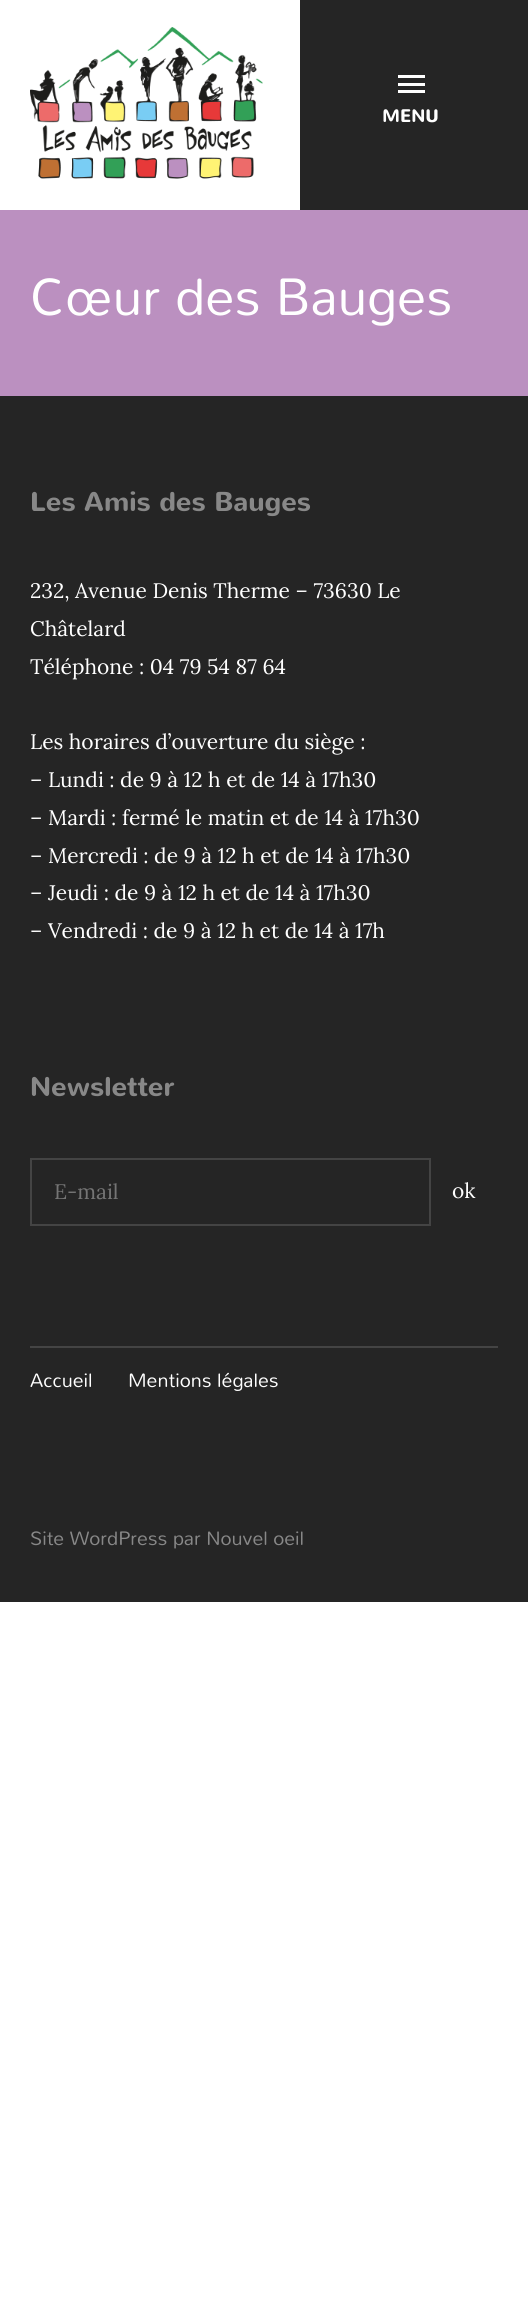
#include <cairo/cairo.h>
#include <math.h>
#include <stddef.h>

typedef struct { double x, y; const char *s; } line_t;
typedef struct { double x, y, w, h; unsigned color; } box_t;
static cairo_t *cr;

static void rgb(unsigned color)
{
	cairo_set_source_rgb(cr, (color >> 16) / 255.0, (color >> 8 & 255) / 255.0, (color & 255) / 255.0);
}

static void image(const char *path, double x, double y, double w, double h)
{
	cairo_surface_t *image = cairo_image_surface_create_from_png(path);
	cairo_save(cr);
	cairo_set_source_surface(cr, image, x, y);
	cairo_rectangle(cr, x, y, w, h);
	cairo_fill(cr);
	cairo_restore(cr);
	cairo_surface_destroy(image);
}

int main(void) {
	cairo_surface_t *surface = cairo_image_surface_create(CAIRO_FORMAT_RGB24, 528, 2309);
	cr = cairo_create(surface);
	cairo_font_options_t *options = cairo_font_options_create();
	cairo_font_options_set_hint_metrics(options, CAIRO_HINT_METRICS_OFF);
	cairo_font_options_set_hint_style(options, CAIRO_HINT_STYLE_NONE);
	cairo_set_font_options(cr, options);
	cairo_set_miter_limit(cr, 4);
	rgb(0xffffff);
	cairo_paint(cr);
	image("img/1.png", 30, 27, 233, 152);
	{
		static const box_t items[] = {
			{300, 0, 228, 210, 0x252525},
			{398, 75, 27, 3, 0xffffff},
			{398, 83, 27, 3, 0xffffff},
			{398, 90, 27, 3, 0xffffff},
			{0, 210, 528, 186, 0xbb90c0},
			{0, 396, 528, 1206, 0x252525},
		};
		for (size_t i = 0; i < sizeof items / sizeof *items; i++) {
			rgb(items[i].color);
			cairo_rectangle(cr, items[i].x, items[i].y, items[i].w, items[i].h);
			cairo_fill(cr);
		}
	}
	cairo_rectangle(cr, 31, 1159, 399, 66);
	rgb(0x444444);
	cairo_stroke(cr);
	cairo_rectangle(cr, 30, 1346, 468, 2);
	cairo_fill(cr);
	cairo_select_font_face(cr, "Nunito", CAIRO_FONT_SLANT_NORMAL, CAIRO_FONT_WEIGHT_BOLD);
	cairo_set_font_size(cr, 18);
	rgb(0xffffff);
	cairo_move_to(cr, 382, 122);
	cairo_show_text(cr, "MENU");
	cairo_select_font_face(cr, "Nunito Light", CAIRO_FONT_SLANT_NORMAL, CAIRO_FONT_WEIGHT_NORMAL);
	cairo_set_font_size(cr, 52.5);
	cairo_move_to(cr, 30, 315);
	cairo_show_text(cr, "Cœur des Bauges");
	cairo_select_font_face(cr, "Nunito", CAIRO_FONT_SLANT_NORMAL, CAIRO_FONT_WEIGHT_BOLD);
	cairo_set_font_size(cr, 27);
	rgb(0x888888);
	cairo_move_to(cr, 30, 511);
	cairo_show_text(cr, "Les Amis des Bauges");
	cairo_select_font_face(cr, "Lora", CAIRO_FONT_SLANT_NORMAL, CAIRO_FONT_WEIGHT_NORMAL);
	cairo_set_font_size(cr, 21);
	rgb(0xffffff);
	{
		static const line_t items[] = {
			{30, 598, "232, Avenue Denis Therme – 73630 Le"},
			{30, 636, "Châtelard"},
			{30, 674, "Téléphone : 04 79 54 87 64"},
			{30, 749, "Les horaires d’ouverture du siège :"},
			{30, 787, "– Lundi : de 9 à 12 h et de 14 à 17h30"},
			{30, 825, "– Mardi : fermé le matin et de 14 à 17h30"},
			{30, 863, "– Mercredi : de 9 à 12 h et de 14 à 17h30"},
			{30, 900, "– Jeudi : de 9 à 12 h et de 14 à 17h30"},
			{30, 938, "– Vendredi : de 9 à 12 h et de 14 à 17h"},
		};
		for (size_t i = 0; i < sizeof items / sizeof *items; i++) {
			cairo_move_to(cr, items[i].x, items[i].y);
			cairo_show_text(cr, items[i].s);
		}
	}
	cairo_select_font_face(cr, "Nunito", CAIRO_FONT_SLANT_NORMAL, CAIRO_FONT_WEIGHT_BOLD);
	cairo_set_font_size(cr, 27);
	rgb(0x888888);
	cairo_move_to(cr, 30, 1096);
	cairo_show_text(cr, "Newsletter");
	cairo_select_font_face(cr, "Lora", CAIRO_FONT_SLANT_NORMAL, CAIRO_FONT_WEIGHT_NORMAL);
	cairo_set_font_size(cr, 21);
	rgb(0x757575);
	cairo_move_to(cr, 54, 1199);
	cairo_show_text(cr, "E-mail");
	rgb(0xffffff);
	cairo_move_to(cr, 452, 1198);
	cairo_show_text(cr, "ok");
	cairo_select_font_face(cr, "Nunito Light", CAIRO_FONT_SLANT_NORMAL, CAIRO_FONT_WEIGHT_NORMAL);
	cairo_set_font_size(cr, 19.5);
	cairo_move_to(cr, 30, 1387);
	cairo_show_text(cr, "Accueil");
	cairo_move_to(cr, 128, 1387);
	cairo_show_text(cr, "Mentions légales");
	rgb(0x888888);
	cairo_move_to(cr, 30, 1545);
	cairo_show_text(cr, "Site WordPress par Nouvel oeil");
	cairo_surface_write_to_png(surface, "page.png");
	cairo_font_options_destroy(options);
	cairo_destroy(cr);
	cairo_surface_destroy(surface);
	return 0;
}
